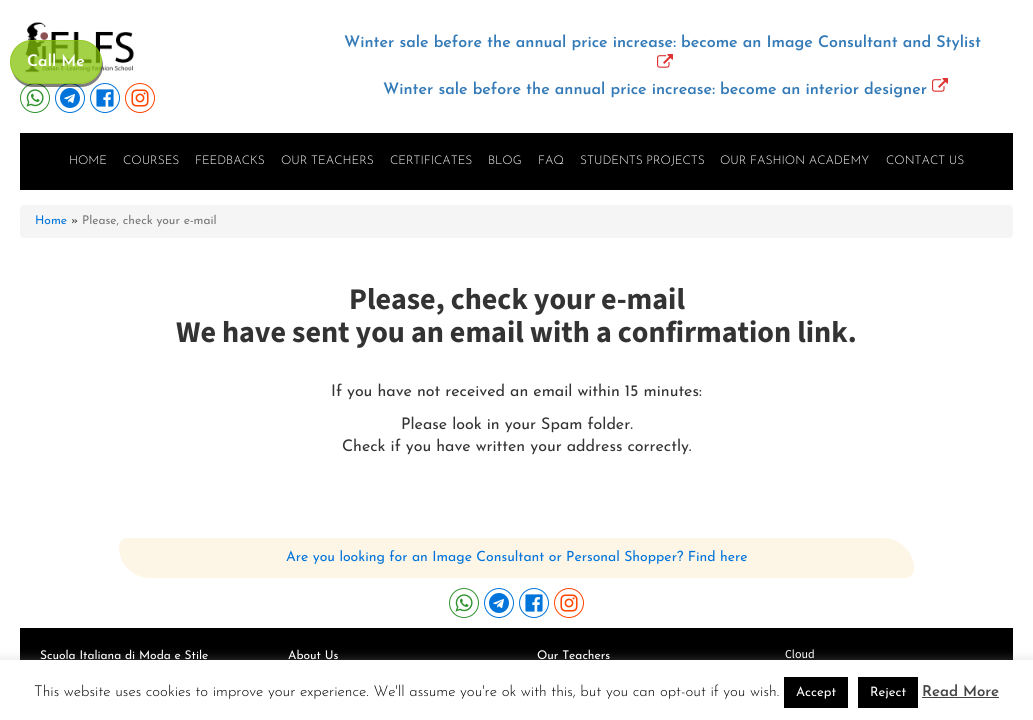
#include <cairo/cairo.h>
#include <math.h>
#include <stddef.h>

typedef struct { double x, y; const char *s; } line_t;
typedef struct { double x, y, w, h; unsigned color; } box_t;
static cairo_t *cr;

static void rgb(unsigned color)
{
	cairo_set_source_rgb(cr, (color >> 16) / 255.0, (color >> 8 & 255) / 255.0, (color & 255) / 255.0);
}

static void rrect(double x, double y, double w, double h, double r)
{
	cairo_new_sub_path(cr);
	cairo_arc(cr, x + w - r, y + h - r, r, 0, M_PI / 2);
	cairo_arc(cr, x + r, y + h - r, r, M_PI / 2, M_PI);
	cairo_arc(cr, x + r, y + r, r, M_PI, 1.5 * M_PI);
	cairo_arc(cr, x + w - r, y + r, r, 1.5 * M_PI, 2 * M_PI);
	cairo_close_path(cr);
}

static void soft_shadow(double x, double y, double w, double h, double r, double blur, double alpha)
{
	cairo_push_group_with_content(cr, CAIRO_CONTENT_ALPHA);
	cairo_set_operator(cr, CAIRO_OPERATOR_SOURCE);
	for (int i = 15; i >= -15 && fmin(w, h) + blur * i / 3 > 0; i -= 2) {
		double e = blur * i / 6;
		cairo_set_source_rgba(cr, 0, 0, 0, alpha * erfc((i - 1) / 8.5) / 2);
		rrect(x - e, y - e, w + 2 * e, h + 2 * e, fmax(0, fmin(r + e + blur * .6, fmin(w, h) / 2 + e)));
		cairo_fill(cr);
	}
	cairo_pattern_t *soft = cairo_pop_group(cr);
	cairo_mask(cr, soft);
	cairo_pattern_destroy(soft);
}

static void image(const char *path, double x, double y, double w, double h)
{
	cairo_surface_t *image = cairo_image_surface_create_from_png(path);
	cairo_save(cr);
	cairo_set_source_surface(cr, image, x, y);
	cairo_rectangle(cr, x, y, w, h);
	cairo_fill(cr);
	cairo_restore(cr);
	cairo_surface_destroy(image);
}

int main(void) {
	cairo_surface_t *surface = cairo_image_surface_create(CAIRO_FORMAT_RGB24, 1033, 720);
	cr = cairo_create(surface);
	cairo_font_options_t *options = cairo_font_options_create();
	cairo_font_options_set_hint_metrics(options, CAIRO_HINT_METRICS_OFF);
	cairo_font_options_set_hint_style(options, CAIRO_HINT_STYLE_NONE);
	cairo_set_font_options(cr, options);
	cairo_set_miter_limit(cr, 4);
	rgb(0xffffff);
	cairo_paint(cr);
	image("img/1.png", 25, 22, 109, 51);
	cairo_arc(cr, 35, 98, 14.5, 0, 2 * M_PI);
	rgb(0x2f932f);
	cairo_set_line_width(cr, 1);
	cairo_stroke(cr);
	cairo_arc(cr, 70, 98, 14.5, 0, 2 * M_PI);
	rgb(0x0074db);
	cairo_stroke(cr);
	cairo_arc(cr, 105, 98, 14.5, 0, 2 * M_PI);
	cairo_stroke(cr);
	cairo_set_source_rgba(cr, 0, 0, 0, 0.5);
	cairo_new_path(cr);
	cairo_move_to(cr, 12, 70);
	cairo_curve_to(cr, 14, 80, 23, 87, 33, 87);
	cairo_line_to(cr, 81, 87);
	cairo_curve_to(cr, 93, 87, 103, 77, 103, 65);
	cairo_curve_to(cr, 103, 62, 102, 59, 101, 57);
	cairo_line_to(cr, 102, 62);
	cairo_curve_to(cr, 102, 74, 92, 84, 80, 84);
	cairo_line_to(cr, 32, 84);
	cairo_curve_to(cr, 23, 84, 15, 78, 12, 70);
	cairo_close_path(cr);
	cairo_fill(cr);
	cairo_set_source_rgba(cr, 0.522, 0.761, 0.039, 0.75);
	rrect(10, 40, 92, 44, 22);
	cairo_fill(cr);
	rrect(10.5, 40.5, 91, 43, 21.5);
	cairo_set_source_rgba(cr, 0.522, 0.761, 0.039, 0.5);
	cairo_stroke(cr);
	image("img/2.png", 26, 89, 18, 18);
	image("img/3.png", 60, 88, 20, 20);
	image("img/4.png", 96, 89, 18, 18);
	cairo_arc(cr, 140, 98, 14.5, 0, 2 * M_PI);
	rgb(0xff4500);
	cairo_stroke(cr);
	image("img/5.png", 131, 89, 18, 18);
	image("img/6.png", 657, 54, 16, 14);
	image("img/6.png", 932, 78, 16, 14);
	rgb(0x000000);
	cairo_rectangle(cr, 20, 133, 993, 57);
	cairo_fill(cr);
	rgb(0xf5f5f5);
	rrect(20, 205, 993, 33, 4);
	cairo_fill(cr);
	rgb(0xfdf5e6);
	cairo_new_path(cr);
	cairo_move_to(cr, 128, 538);
	cairo_line_to(cr, 883, 538);
	cairo_curve_to(cr, 900, 538, 914, 552, 914, 569);
	cairo_curve_to(cr, 914, 574, 910, 578, 905, 578);
	cairo_line_to(cr, 150, 578);
	cairo_curve_to(cr, 133, 578, 119, 564, 119, 547);
	cairo_curve_to(cr, 119, 542, 123, 538, 128, 538);
	cairo_close_path(cr);
	cairo_fill(cr);
	cairo_arc(cr, 464, 603, 14.5, 0, 2 * M_PI);
	rgb(0x2f932f);
	cairo_stroke(cr);
	image("img/2.png", 455, 594, 18, 18);
	cairo_arc(cr, 499, 603, 14.5, 0, 2 * M_PI);
	rgb(0x0074db);
	cairo_stroke(cr);
	image("img/3.png", 489, 593, 20, 20);
	cairo_arc(cr, 534, 603, 14.5, 0, 2 * M_PI);
	cairo_stroke(cr);
	image("img/4.png", 525, 594, 18, 18);
	cairo_arc(cr, 569, 603, 14.5, 0, 2 * M_PI);
	rgb(0xff4500);
	cairo_stroke(cr);
	image("img/5.png", 560, 594, 18, 18);
	rgb(0x000000);
	cairo_rectangle(cr, 20, 628, 993, 32);
	cairo_fill(cr);
	rgb(0xacabab);
	soft_shadow(0, 659, 1033, 60, 0, 5, 0.3);
	{
		static const box_t items[] = {
			{0, 660, 1033, 60, 0xffffff},
			{784, 677, 64, 31, 0x000000},
			{858, 677, 60, 31, 0x000000},
			{922, 697, 77, 1, 0x444444},
		};
		for (size_t i = 0; i < sizeof items / sizeof *items; i++) {
			rgb(items[i].color);
			cairo_rectangle(cr, items[i].x, items[i].y, items[i].w, items[i].h);
			cairo_fill(cr);
		}
	}
	cairo_select_font_face(cr, "Josefin Sans SemiBold", CAIRO_FONT_SLANT_NORMAL, CAIRO_FONT_WEIGHT_NORMAL);
	cairo_set_font_size(cr, 16);
	rgb(0xffffff);
	cairo_move_to(cr, 27, 66);
	cairo_show_text(cr, "Call Me");
	rgb(0x337ab7);
	cairo_move_to(cr, 344, 47);
	cairo_show_text(cr, "Winter sale before the annual price increase: become an Image Consultant and Stylist");
	cairo_move_to(cr, 383, 94);
	cairo_show_text(cr, "Winter sale before the annual price increase: become an interior designer");
	cairo_select_font_face(cr, "Josefin Sans Light", CAIRO_FONT_SLANT_NORMAL, CAIRO_FONT_WEIGHT_NORMAL);
	cairo_set_font_size(cr, 12);
	rgb(0xffffff);
	{
		static const line_t items[] = {
			{69, 164, "HOME"},
			{123, 164, "COURSES"},
			{195, 164, "FEEDBACKS"},
			{281, 164, "OUR TEACHERS"},
			{390, 164, "CERTIFICATES"},
			{488, 164, "BLOG"},
			{538, 164, "FAQ"},
			{580, 164, "STUDENTS PROJECTS"},
			{720, 164, "OUR FASHION ACADEMY"},
			{886, 164, "CONTACT US"},
		};
		for (size_t i = 0; i < sizeof items / sizeof *items; i++) {
			cairo_move_to(cr, items[i].x, items[i].y);
			cairo_show_text(cr, items[i].s);
		}
	}
	cairo_select_font_face(cr, "Josefin Sans", CAIRO_FONT_SLANT_NORMAL, CAIRO_FONT_WEIGHT_NORMAL);
	rgb(0x0074db);
	cairo_move_to(cr, 35, 224);
	cairo_show_text(cr, "Home");
	rgb(0x333333);
	cairo_move_to(cr, 71, 224);
	cairo_show_text(cr, "»");
	rgb(0x777777);
	cairo_move_to(cr, 82, 224);
	cairo_show_text(cr, "Please, check your e-mail");
	cairo_select_font_face(cr, "Source Sans 3", CAIRO_FONT_SLANT_NORMAL, CAIRO_FONT_WEIGHT_BOLD);
	cairo_set_font_size(cr, 30);
	rgb(0x333333);
	cairo_move_to(cr, 349, 309);
	cairo_show_text(cr, "Please, check your e-mail");
	cairo_move_to(cr, 176, 342);
	cairo_show_text(cr, "We have sent you an email with a confirmation link.");
	cairo_select_font_face(cr, "Josefin Sans", CAIRO_FONT_SLANT_NORMAL, CAIRO_FONT_WEIGHT_NORMAL);
	cairo_set_font_size(cr, 16);
	{
		static const line_t items[] = {
			{331, 396, "If you have not received an email within 15 minutes:"},
			{401, 429, "Please look in your Spam folder."},
			{342, 451, "Check if you have written your address correctly."},
		};
		for (size_t i = 0; i < sizeof items / sizeof *items; i++) {
			cairo_move_to(cr, items[i].x, items[i].y);
			cairo_show_text(cr, items[i].s);
		}
	}
	cairo_set_font_size(cr, 14);
	rgb(0x0074db);
	cairo_move_to(cr, 286, 561);
	cairo_show_text(cr, "Are you looking for an Image Consultant or Personal Shopper? Find here");
	cairo_set_font_size(cr, 12);
	rgb(0xffffff);
	{
		static const line_t items[] = {
			{40, 659, "Scuola Italiana di Moda e Stile"},
			{288, 659, "About Us"},
			{537, 659, "Our Teachers"},
		};
		for (size_t i = 0; i < sizeof items / sizeof *items; i++) {
			cairo_move_to(cr, items[i].x, items[i].y);
			cairo_show_text(cr, items[i].s);
		}
	}
	cairo_select_font_face(cr, "Source Sans 3", CAIRO_FONT_SLANT_NORMAL, CAIRO_FONT_WEIGHT_NORMAL);
	cairo_move_to(cr, 785, 658);
	cairo_show_text(cr, "Cloud");
	cairo_select_font_face(cr, "Josefin Sans Light", CAIRO_FONT_SLANT_NORMAL, CAIRO_FONT_WEIGHT_NORMAL);
	cairo_set_font_size(cr, 15);
	rgb(0x000000);
	cairo_move_to(cr, 34, 696);
	cairo_show_text(cr, "This website uses cookies to improve your experience. We'll assume you're ok with this, but you can opt-out if you wish.");
	cairo_select_font_face(cr, "Josefin Sans", CAIRO_FONT_SLANT_NORMAL, CAIRO_FONT_WEIGHT_NORMAL);
	cairo_set_font_size(cr, 13);
	rgb(0xffffff);
	cairo_move_to(cr, 796, 696);
	cairo_show_text(cr, "Accept");
	cairo_move_to(cr, 870, 696);
	cairo_show_text(cr, "Reject");
	cairo_select_font_face(cr, "Josefin Sans SemiBold", CAIRO_FONT_SLANT_NORMAL, CAIRO_FONT_WEIGHT_NORMAL);
	cairo_set_font_size(cr, 15);
	rgb(0x444444);
	cairo_move_to(cr, 922, 696);
	cairo_show_text(cr, "Read More");
	cairo_surface_write_to_png(surface, "page.png");
	cairo_font_options_destroy(options);
	cairo_destroy(cr);
	cairo_surface_destroy(surface);
	return 0;
}
